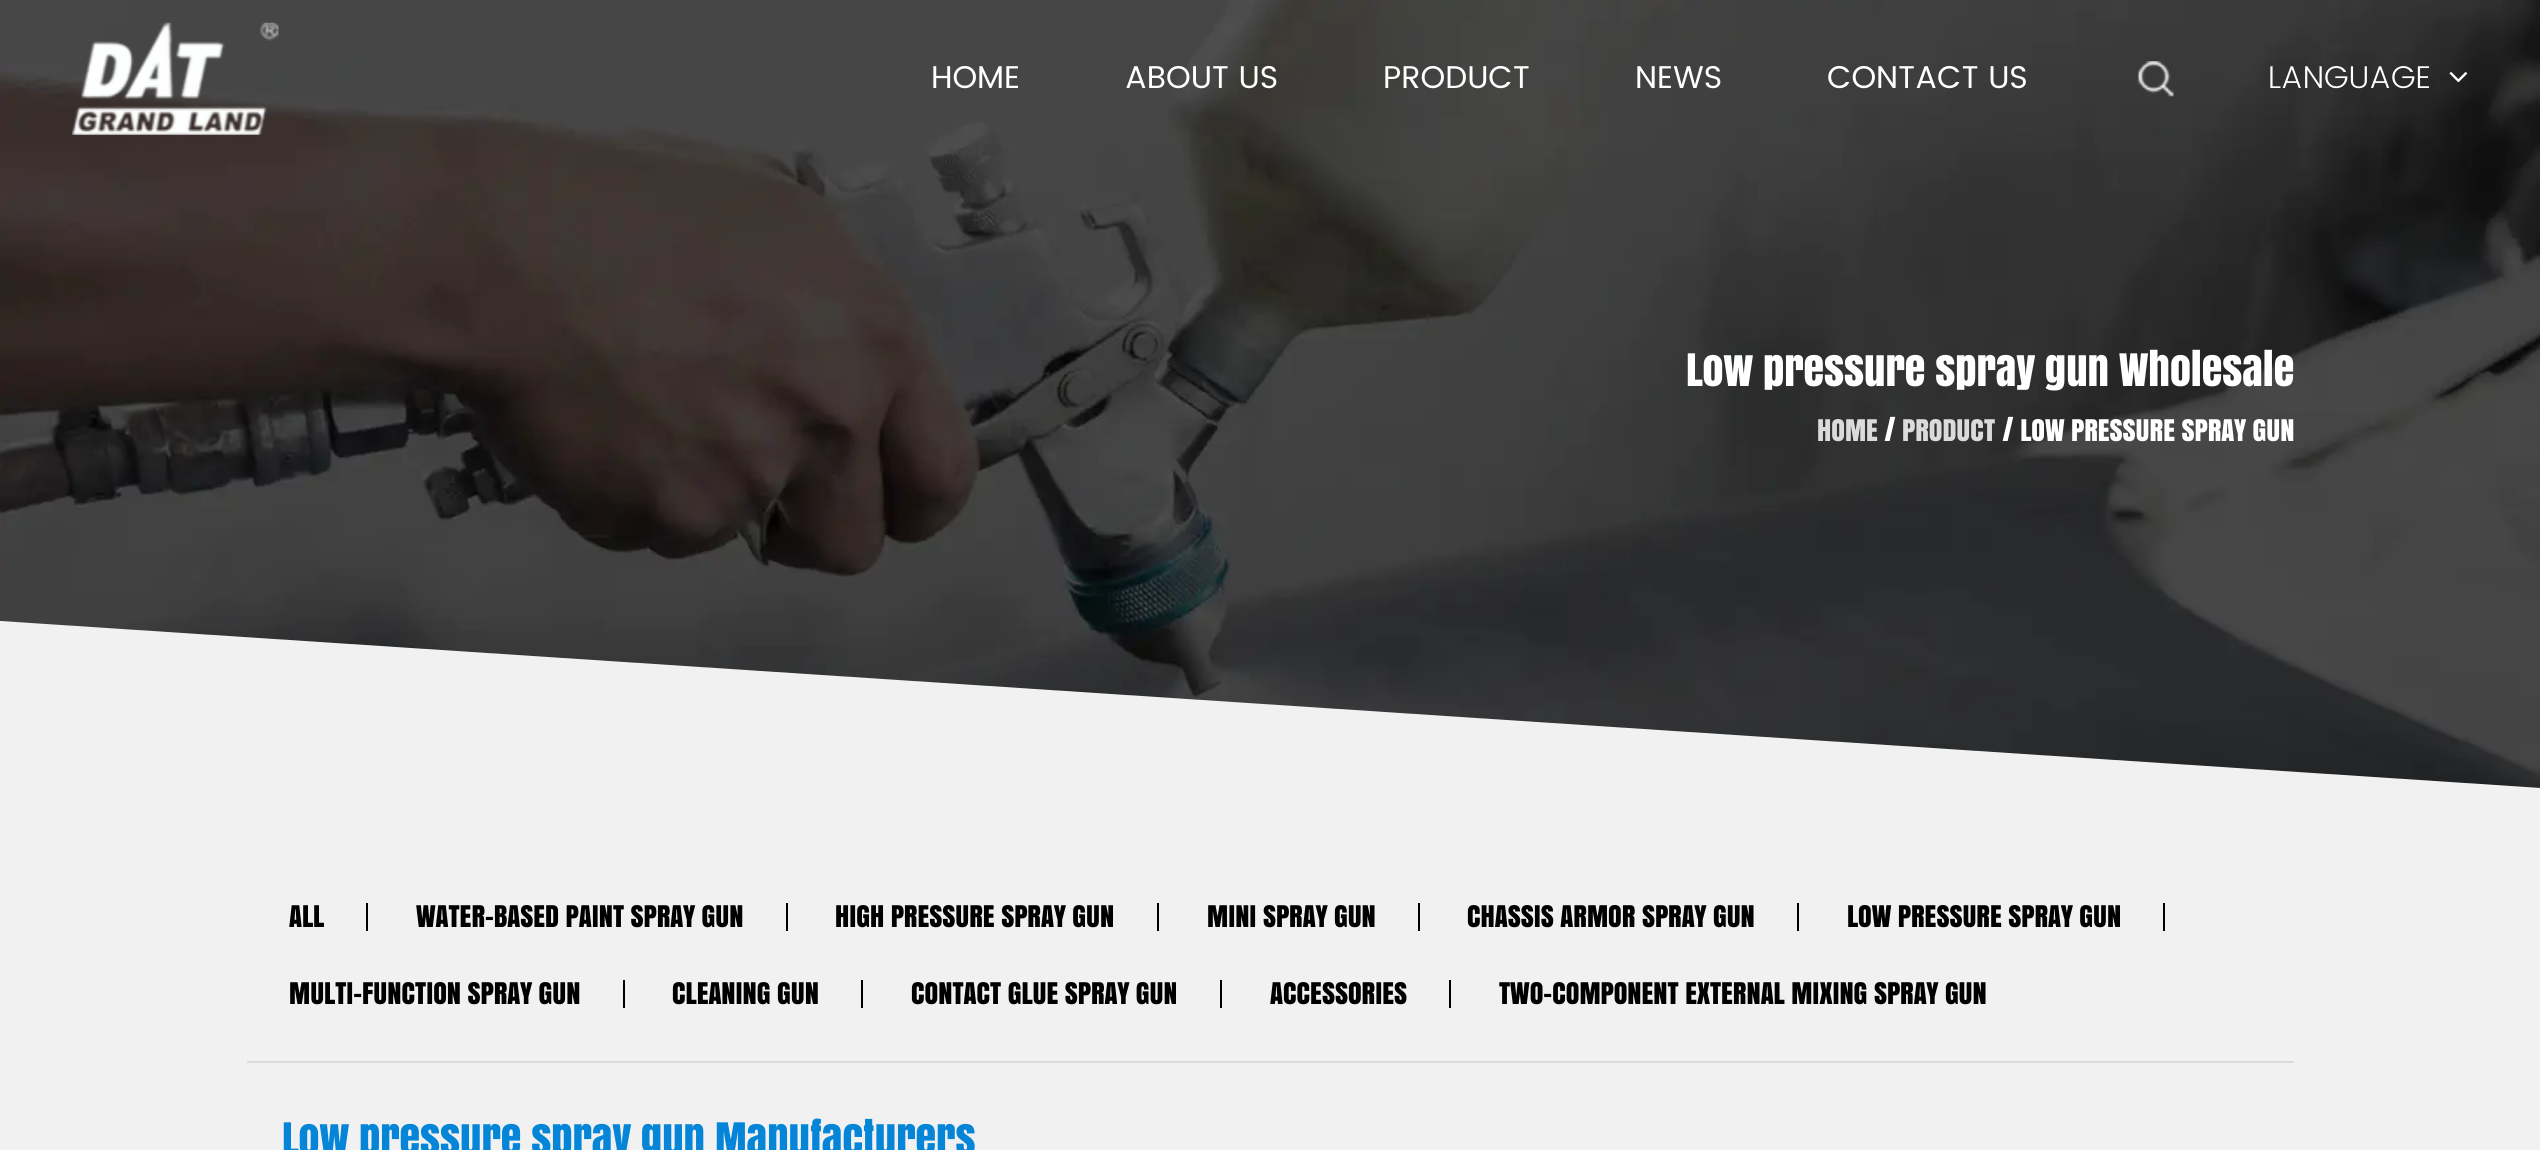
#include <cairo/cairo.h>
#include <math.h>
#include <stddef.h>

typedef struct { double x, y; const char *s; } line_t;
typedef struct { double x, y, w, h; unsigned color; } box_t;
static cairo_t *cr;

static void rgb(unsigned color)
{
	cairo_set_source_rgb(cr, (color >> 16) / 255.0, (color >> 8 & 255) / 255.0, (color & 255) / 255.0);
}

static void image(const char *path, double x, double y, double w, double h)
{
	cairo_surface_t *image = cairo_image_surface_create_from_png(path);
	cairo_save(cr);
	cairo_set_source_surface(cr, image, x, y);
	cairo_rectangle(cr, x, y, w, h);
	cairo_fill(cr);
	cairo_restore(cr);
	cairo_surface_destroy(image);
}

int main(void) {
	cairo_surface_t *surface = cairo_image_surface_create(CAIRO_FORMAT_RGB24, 2540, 1150);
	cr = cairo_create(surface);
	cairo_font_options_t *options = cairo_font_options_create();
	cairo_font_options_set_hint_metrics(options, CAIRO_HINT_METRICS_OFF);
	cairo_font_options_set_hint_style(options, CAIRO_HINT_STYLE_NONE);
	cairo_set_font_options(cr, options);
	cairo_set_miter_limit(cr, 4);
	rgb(0xffffff);
	cairo_paint(cr);
	image("img/4.png", 0, 0, 2540, 788);
	image("img/1.png", 72, 22, 207, 113);
	image("img/2.png", 2137, 61, 37, 36);
	image("img/3.png", 2449, 72, 19, 11);
	cairo_save(cr);
	cairo_rectangle(cr, 0, 621, 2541, 175);
	cairo_clip(cr);
	rgb(0xf1f1f1);
	cairo_new_path(cr);
	cairo_move_to(cr, 0, 805);
	cairo_line_to(cr, 0, 621);
	cairo_line_to(cr, 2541, 788);
	cairo_line_to(cr, 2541, 805);
	cairo_close_path(cr);
	cairo_fill(cr);
	cairo_restore(cr);
	{
		static const box_t items[] = {
			{0, 796, 2540, 354, 0xf1f1f1},
			{247, 1061, 2047, 2, 0xdbdbdb},
			{366, 903, 2, 28, 0x000000},
			{786, 903, 2, 28, 0x000000},
			{1157, 903, 2, 28, 0x000000},
			{1418, 903, 2, 28, 0x000000},
			{1797, 903, 2, 28, 0x000000},
			{2163, 903, 2, 28, 0x000000},
			{623, 980, 2, 28, 0x000000},
			{861, 980, 2, 28, 0x000000},
			{1220, 980, 2, 28, 0x000000},
			{1449, 980, 2, 28, 0x000000},
		};
		for (size_t i = 0; i < sizeof items / sizeof *items; i++) {
			rgb(items[i].color);
			cairo_rectangle(cr, items[i].x, items[i].y, items[i].w, items[i].h);
			cairo_fill(cr);
		}
	}
	cairo_select_font_face(cr, "Poppins", CAIRO_FONT_SLANT_NORMAL, CAIRO_FONT_WEIGHT_NORMAL);
	cairo_set_font_size(cr, 31.5);
	rgb(0xffffff);
	{
		static const line_t items[] = {
			{931, 88, "HOME"},
			{1125, 88, "ABOUT US"},
			{1383, 88, "PRODUCT"},
			{1635, 88, "NEWS"},
			{1827, 88, "CONTACT US"},
		};
		for (size_t i = 0; i < sizeof items / sizeof *items; i++) {
			cairo_move_to(cr, items[i].x, items[i].y);
			cairo_show_text(cr, items[i].s);
		}
	}
	cairo_select_font_face(cr, "Poppins Light", CAIRO_FONT_SLANT_NORMAL, CAIRO_FONT_WEIGHT_NORMAL);
	cairo_move_to(cr, 2268, 88);
	cairo_show_text(cr, "LANGUAGE");
	cairo_select_font_face(cr, "Anton", CAIRO_FONT_SLANT_NORMAL, CAIRO_FONT_WEIGHT_NORMAL);
	cairo_set_font_size(cr, 42);
	cairo_move_to(cr, 1686, 386);
	cairo_show_text(cr, "Low pressure spray gun Wholesale");
	cairo_set_font_size(cr, 28);
	rgb(0xdbdbdb);
	cairo_move_to(cr, 1817, 441);
	cairo_show_text(cr, "HOME");
	rgb(0xffffff);
	cairo_move_to(cr, 1884, 441);
	cairo_show_text(cr, "/");
	rgb(0xdbdbdb);
	cairo_move_to(cr, 1902, 441);
	cairo_show_text(cr, "PRODUCT");
	rgb(0xffffff);
	cairo_move_to(cr, 2002, 441);
	cairo_show_text(cr, "/ LOW PRESSURE SPRAY GUN");
	rgb(0x000000);
	{
		static const line_t items[] = {
			{289, 927, "ALL"},
			{416, 927, "WATER-BASED PAINT SPRAY GUN"},
			{835, 927, "HIGH PRESSURE SPRAY GUN"},
			{1207, 927, "MINI SPRAY GUN"},
			{1467, 927, "CHASSIS ARMOR SPRAY GUN"},
			{1847, 927, "LOW PRESSURE SPRAY GUN"},
			{289, 1004, "MULTI-FUNCTION SPRAY GUN"},
			{672, 1004, "CLEANING GUN"},
			{911, 1004, "CONTACT GLUE SPRAY GUN"},
			{1270, 1004, "ACCESSORIES"},
			{1499, 1004, "TWO-COMPONENT EXTERNAL MIXING SPRAY GUN"},
		};
		for (size_t i = 0; i < sizeof items / sizeof *items; i++) {
			cairo_move_to(cr, items[i].x, items[i].y);
			cairo_show_text(cr, items[i].s);
		}
	}
	cairo_set_font_size(cr, 42);
	rgb(0x0585d7);
	cairo_move_to(cr, 282, 1155);
	cairo_show_text(cr, "Low pressure spray gun Manufacturers");
	cairo_surface_write_to_png(surface, "page.png");
	cairo_font_options_destroy(options);
	cairo_destroy(cr);
	cairo_surface_destroy(surface);
	return 0;
}
